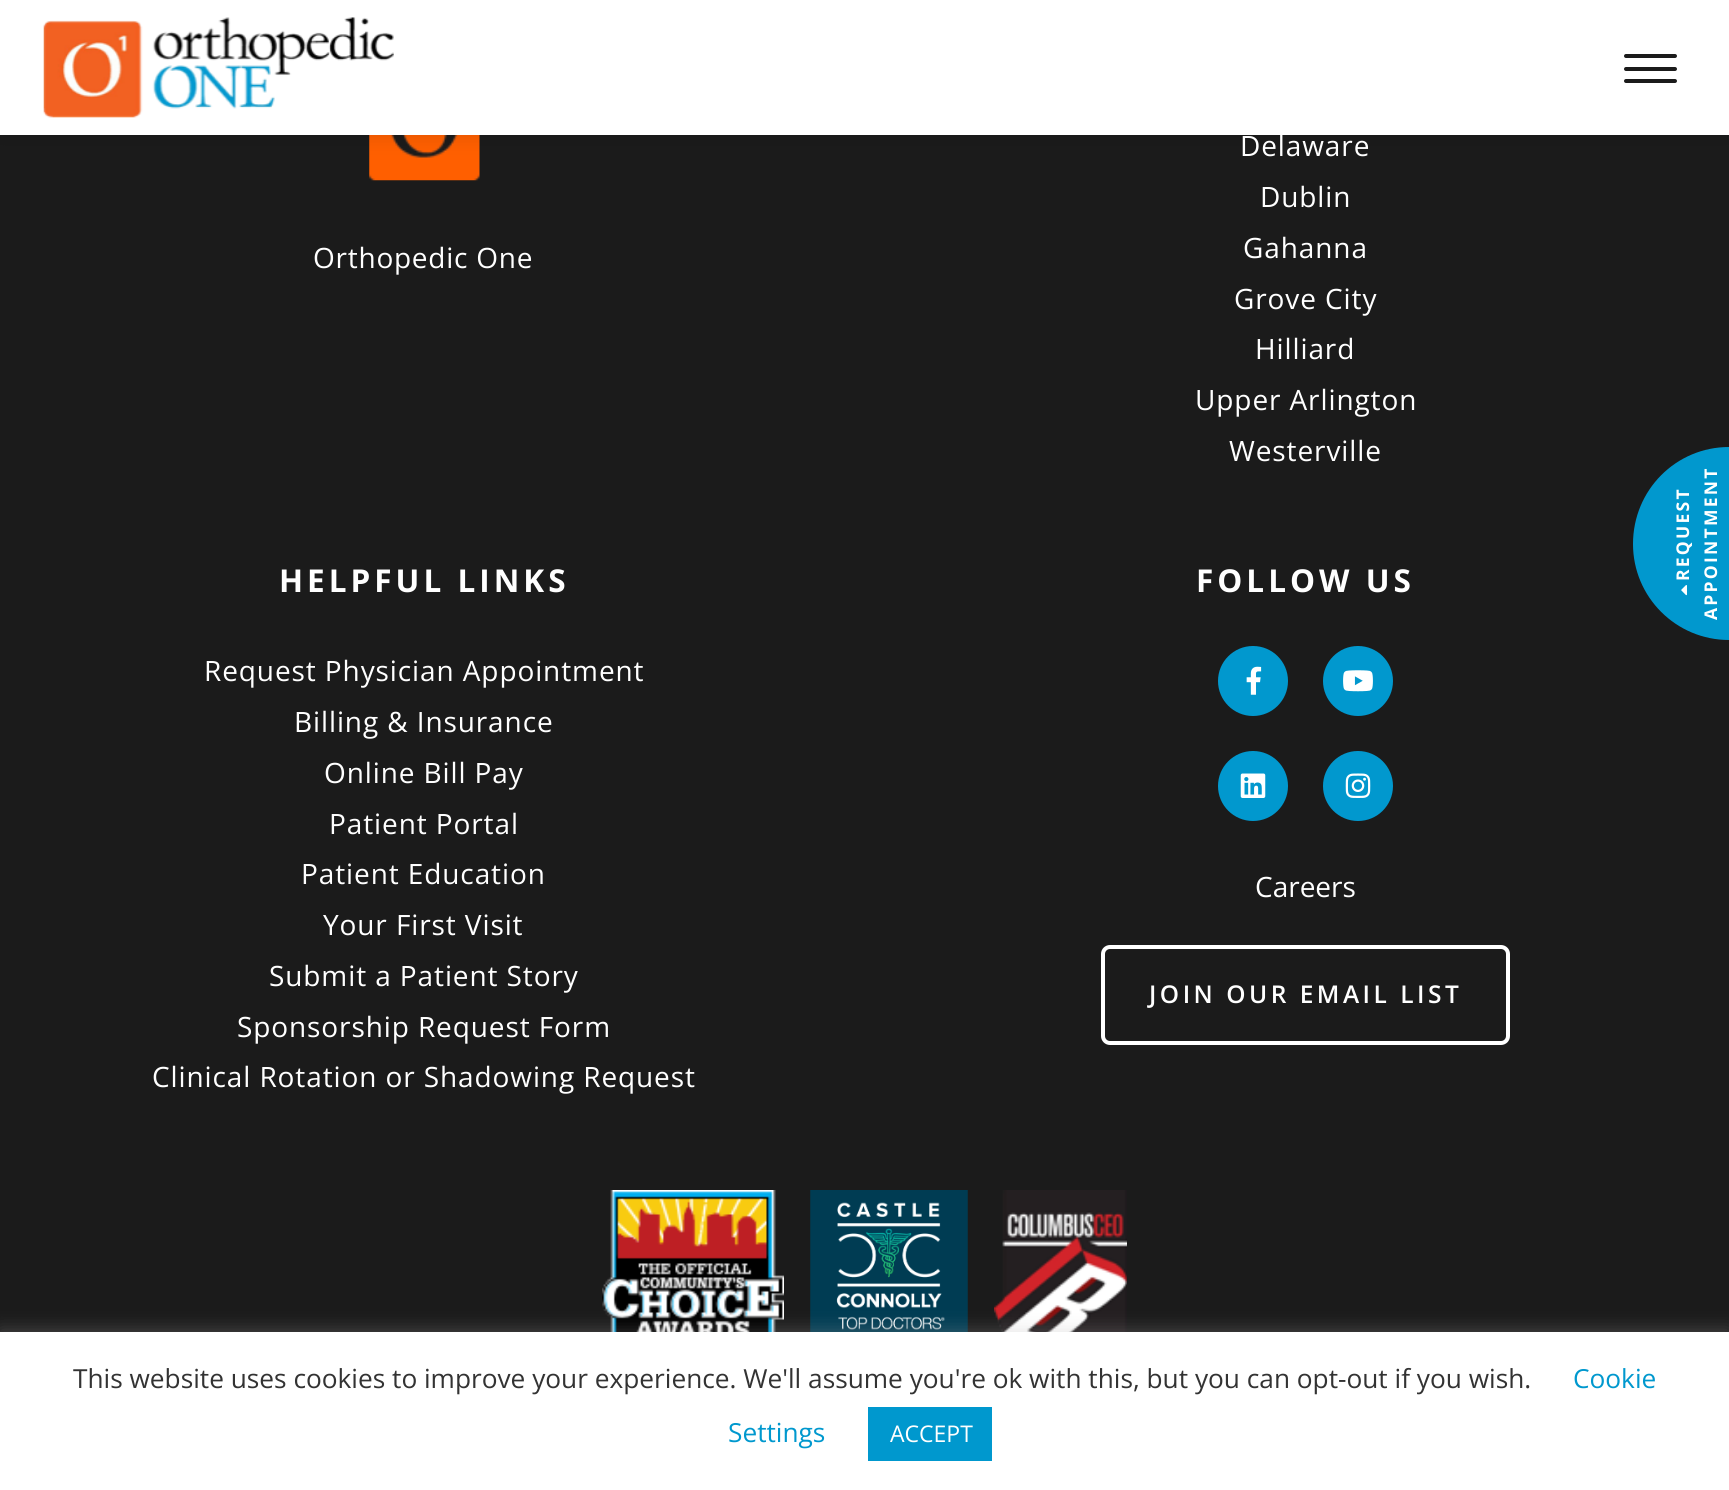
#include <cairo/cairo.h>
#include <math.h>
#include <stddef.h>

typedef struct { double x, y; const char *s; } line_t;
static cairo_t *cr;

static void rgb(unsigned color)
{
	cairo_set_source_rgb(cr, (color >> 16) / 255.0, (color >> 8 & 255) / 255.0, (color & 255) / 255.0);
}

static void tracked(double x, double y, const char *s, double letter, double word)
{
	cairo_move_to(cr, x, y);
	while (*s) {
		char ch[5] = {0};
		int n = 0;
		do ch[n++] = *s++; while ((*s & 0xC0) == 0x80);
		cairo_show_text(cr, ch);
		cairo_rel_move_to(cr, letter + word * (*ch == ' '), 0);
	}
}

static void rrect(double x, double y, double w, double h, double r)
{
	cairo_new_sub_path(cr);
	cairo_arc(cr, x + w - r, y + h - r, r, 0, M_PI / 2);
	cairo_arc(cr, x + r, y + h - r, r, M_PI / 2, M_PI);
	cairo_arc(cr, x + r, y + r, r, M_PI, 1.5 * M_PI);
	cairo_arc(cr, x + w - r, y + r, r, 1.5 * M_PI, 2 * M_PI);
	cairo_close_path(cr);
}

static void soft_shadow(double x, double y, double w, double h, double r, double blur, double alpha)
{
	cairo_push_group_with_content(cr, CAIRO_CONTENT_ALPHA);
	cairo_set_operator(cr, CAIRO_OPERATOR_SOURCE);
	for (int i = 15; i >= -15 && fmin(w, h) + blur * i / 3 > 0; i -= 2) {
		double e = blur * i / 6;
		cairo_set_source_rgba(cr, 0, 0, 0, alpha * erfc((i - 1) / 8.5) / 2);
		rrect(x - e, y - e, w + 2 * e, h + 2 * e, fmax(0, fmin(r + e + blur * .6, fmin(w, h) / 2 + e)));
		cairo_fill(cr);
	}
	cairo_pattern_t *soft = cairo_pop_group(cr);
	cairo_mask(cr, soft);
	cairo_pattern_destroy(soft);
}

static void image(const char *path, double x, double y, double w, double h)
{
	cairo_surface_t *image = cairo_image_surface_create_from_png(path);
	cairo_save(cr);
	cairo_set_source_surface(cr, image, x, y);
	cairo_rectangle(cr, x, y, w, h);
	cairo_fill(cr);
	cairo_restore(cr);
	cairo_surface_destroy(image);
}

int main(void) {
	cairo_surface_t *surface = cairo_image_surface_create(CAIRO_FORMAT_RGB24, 1729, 1490);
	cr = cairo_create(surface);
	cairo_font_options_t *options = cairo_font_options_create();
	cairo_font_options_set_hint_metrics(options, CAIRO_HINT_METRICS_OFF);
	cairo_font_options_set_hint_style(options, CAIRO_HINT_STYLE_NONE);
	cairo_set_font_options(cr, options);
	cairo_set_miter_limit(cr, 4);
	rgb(0x1b1b1b);
	cairo_paint(cr);
	image("img/2.png", 369, 135, 111, 46);
	rgb(0x000000);
	soft_shadow(0, 4, 1729, 134, 0, 9, 0.1);
	rgb(0xffffff);
	cairo_rectangle(cr, 0, 0, 1729, 135);
	cairo_fill(cr);
	image("img/1.png", 43, 17, 351, 101);
	rgb(0x1b1b1b);
	rrect(1624, 54, 53, 4, 2);
	cairo_fill(cr);
	rrect(1624, 67, 53, 4, 2);
	cairo_fill(cr);
	rrect(1624, 79, 53, 4, 2);
	cairo_fill(cr);
	rgb(0x0198ce);
	cairo_arc(cr, 1253, 681, 35, 0, 2 * M_PI);
	cairo_fill(cr);
	image("img/3.png", 1246, 666, 16, 29);
	cairo_arc(cr, 1358, 681, 35, 0, 2 * M_PI);
	cairo_fill(cr);
	image("img/4.png", 1343, 670, 30, 22);
	cairo_arc(cr, 1253, 786, 35, 0, 2 * M_PI);
	cairo_fill(cr);
	image("img/5.png", 1240, 773, 26, 25);
	cairo_arc(cr, 1358, 786, 35, 0, 2 * M_PI);
	cairo_fill(cr);
	image("img/6.png", 1345, 773, 26, 25);
	rrect(1103, 947, 405, 96, 7);
	rgb(0xffffff);
	cairo_set_line_width(cr, 4);
	cairo_stroke(cr);
	image("img/7.png", 602, 1190, 182, 142);
	image("img/8.png", 810, 1190, 158, 142);
	image("img/9.png", 994, 1190, 133, 142);
	rgb(0x0198ce);
	cairo_new_path(cr);
	cairo_move_to(cr, 1729, 640);
	cairo_curve_to(cr, 1676, 640, 1633, 597, 1633, 544);
	cairo_curve_to(cr, 1633, 490, 1676, 447, 1729, 447);
	cairo_curve_to(cr, 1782, 447, 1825, 490, 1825, 544);
	cairo_curve_to(cr, 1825, 597, 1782, 640, 1729, 640);
	cairo_close_path(cr);
	cairo_fill(cr);
	image("img/10.png", 1681, 585, 6, 11);
	rgb(0xacabab);
	soft_shadow(0, 1330, 1729, 159, 0, 9, 0.3);
	rgb(0xffffff);
	cairo_rectangle(cr, 0, 1332, 1729, 158);
	cairo_fill(cr);
	rgb(0x0098ce);
	cairo_rectangle(cr, 868, 1407, 124, 54);
	cairo_fill(cr);
	cairo_select_font_face(cr, "Open Sans", CAIRO_FONT_SLANT_NORMAL, CAIRO_FONT_WEIGHT_NORMAL);
	cairo_set_font_size(cr, 28);
	rgb(0xffffff);
	tracked(313, 268, "Orthopedic One", 0.75, 0);
	{
		static const line_t items[] = {
			{1240, 156, "Delaware"},
			{1260, 207, "Dublin"},
			{1243, 258, "Gahanna"},
			{1234, 309, "Grove City"},
			{1255, 359, "Hilliard"},
			{1195, 410, "Upper Arlington"},
			{1229, 461, "Westerville"},
		};
		for (size_t i = 0; i < sizeof items / sizeof *items; i++) {
			tracked(items[i].x, items[i].y, items[i].s, 0.9, 0);
		}
	}
	cairo_select_font_face(cr, "Open Sans", CAIRO_FONT_SLANT_NORMAL, CAIRO_FONT_WEIGHT_BOLD);
	cairo_set_font_size(cr, 31.5);
	tracked(279, 592, "HELPFUL LINKS", 4, 0);
	cairo_select_font_face(cr, "Open Sans", CAIRO_FONT_SLANT_NORMAL, CAIRO_FONT_WEIGHT_NORMAL);
	cairo_set_font_size(cr, 28);
	{
		static const line_t items[] = {
			{204, 681, "Request Physician Appointment"},
			{294, 732, "Billing & Insurance"},
			{324, 783, "Online Bill Pay"},
			{329, 834, "Patient Portal"},
			{301, 884, "Patient Education"},
			{323, 935, "Your First Visit"},
			{269, 986, "Submit a Patient Story"},
			{237, 1037, "Sponsorship Request Form"},
			{152, 1087, "Clinical Rotation or Shadowing Request"},
		};
		for (size_t i = 0; i < sizeof items / sizeof *items; i++) {
			tracked(items[i].x, items[i].y, items[i].s, 0.9, 0);
		}
	}
	cairo_select_font_face(cr, "Open Sans", CAIRO_FONT_SLANT_NORMAL, CAIRO_FONT_WEIGHT_BOLD);
	cairo_set_font_size(cr, 31.5);
	tracked(1196, 592, "FOLLOW US", 4, 0);
	cairo_select_font_face(cr, "Open Sans", CAIRO_FONT_SLANT_NORMAL, CAIRO_FONT_WEIGHT_NORMAL);
	cairo_set_font_size(cr, 28);
	cairo_move_to(cr, 1255, 897);
	cairo_show_text(cr, "Careers");
	cairo_select_font_face(cr, "Open Sans SemiBold", CAIRO_FONT_SLANT_NORMAL, CAIRO_FONT_WEIGHT_NORMAL);
	cairo_set_font_size(cr, 24.5);
	tracked(1149, 1003, "JOIN OUR EMAIL LIST", 3.5, 0);
	cairo_select_font_face(cr, "Open Sans", CAIRO_FONT_SLANT_NORMAL, CAIRO_FONT_WEIGHT_BOLD);
	cairo_set_font_size(cr, 17.5);
	cairo_save(cr);
	cairo_translate(cr, 1689, 581);
	cairo_rotate(cr, -90 * M_PI / 180);
	tracked(0, 0, "REQUEST", 2.25, 0);
	cairo_restore(cr);
	cairo_save(cr);
	cairo_translate(cr, 1717, 620);
	cairo_rotate(cr, -90 * M_PI / 180);
	tracked(0, 0, "APPOINTMENT", 2.25, 0);
	cairo_restore(cr);
	cairo_select_font_face(cr, "Open Sans", CAIRO_FONT_SLANT_NORMAL, CAIRO_FONT_WEIGHT_NORMAL);
	cairo_set_font_size(cr, 26.25);
	rgb(0x333333);
	cairo_move_to(cr, 73, 1388);
	cairo_show_text(cr, "This website uses cookies to improve your experience. We'll assume you're ok with this, but you can opt-out if you wish.");
	rgb(0x0098ce);
	cairo_move_to(cr, 1573, 1388);
	cairo_show_text(cr, "Cookie");
	cairo_move_to(cr, 728, 1442);
	cairo_show_text(cr, "Settings");
	cairo_set_font_size(cr, 23);
	rgb(0xffffff);
	cairo_move_to(cr, 890, 1442);
	cairo_show_text(cr, "ACCEPT");
	cairo_surface_write_to_png(surface, "page.png");
	cairo_font_options_destroy(options);
	cairo_destroy(cr);
	cairo_surface_destroy(surface);
	return 0;
}
